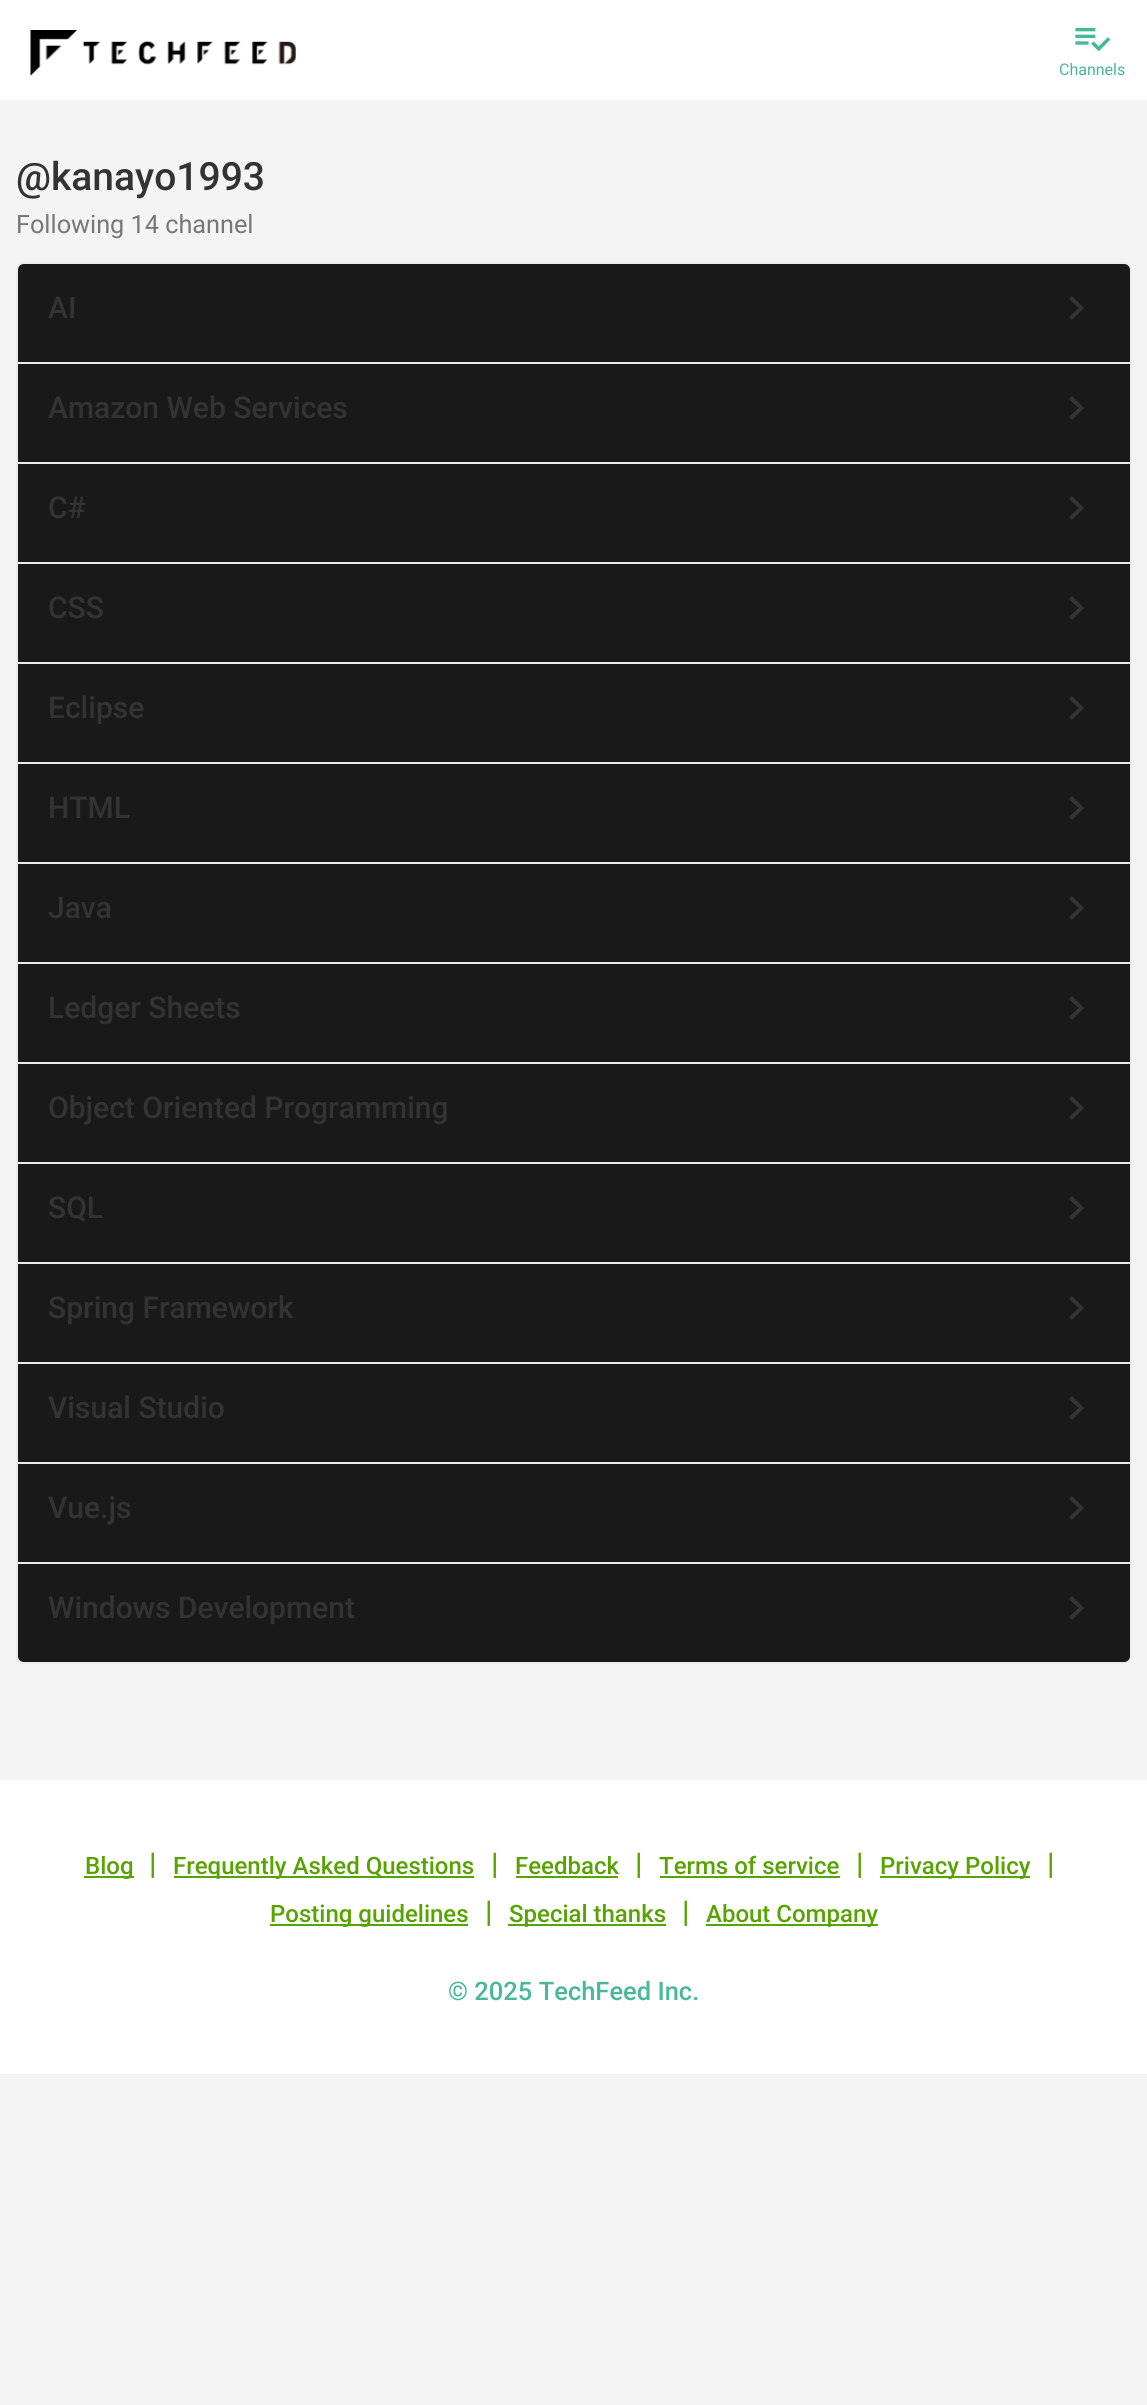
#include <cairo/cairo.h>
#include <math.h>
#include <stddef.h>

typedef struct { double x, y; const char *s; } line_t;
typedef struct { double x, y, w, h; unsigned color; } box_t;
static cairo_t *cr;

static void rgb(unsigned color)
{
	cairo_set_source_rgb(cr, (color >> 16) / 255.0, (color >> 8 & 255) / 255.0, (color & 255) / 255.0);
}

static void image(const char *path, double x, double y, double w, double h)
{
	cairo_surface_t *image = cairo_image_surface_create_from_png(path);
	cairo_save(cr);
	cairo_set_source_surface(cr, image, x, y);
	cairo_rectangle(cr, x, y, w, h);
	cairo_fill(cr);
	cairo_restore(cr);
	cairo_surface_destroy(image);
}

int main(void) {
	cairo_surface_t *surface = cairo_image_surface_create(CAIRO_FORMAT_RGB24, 1147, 2405);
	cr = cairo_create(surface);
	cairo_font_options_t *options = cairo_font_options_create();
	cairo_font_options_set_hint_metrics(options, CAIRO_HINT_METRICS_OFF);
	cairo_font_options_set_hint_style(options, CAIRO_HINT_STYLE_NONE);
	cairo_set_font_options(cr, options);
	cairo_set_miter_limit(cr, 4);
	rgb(0xf4f4f4);
	cairo_paint(cr);
	rgb(0xffffff);
	cairo_rectangle(cr, 0, 0, 1147, 100);
	cairo_fill(cr);
	image("img/1.png", 30, 30, 266, 46);
	image("img/2.png", 1075, 28, 36, 24);
	rgb(0x191919);
	cairo_new_path(cr);
	cairo_move_to(cr, 24, 263);
	cairo_line_to(cr, 1124, 263);
	cairo_curve_to(cr, 1128, 263, 1131, 266, 1131, 270);
	cairo_line_to(cr, 1131, 363);
	cairo_line_to(cr, 17, 363);
	cairo_line_to(cr, 17, 270);
	cairo_curve_to(cr, 17, 266, 20, 263, 24, 263);
	cairo_close_path(cr);
	cairo_fill_preserve(cr);
	rgb(0xebebeb);
	cairo_stroke(cr);
	rgb(0x333333);
	cairo_new_path(cr);
	cairo_move_to(cr, 1069, 317);
	cairo_line_to(cr, 1078.5, 308);
	cairo_line_to(cr, 1069, 299);
	cairo_line_to(cr, 1072, 296);
	cairo_line_to(cr, 1084, 308);
	cairo_line_to(cr, 1072, 320);
	cairo_close_path(cr);
	cairo_fill(cr);
	rgb(0x191919);
	cairo_rectangle(cr, 17, 363, 1114, 100);
	cairo_fill_preserve(cr);
	rgb(0xebebeb);
	cairo_stroke(cr);
	rgb(0x333333);
	cairo_new_path(cr);
	cairo_move_to(cr, 1069, 417);
	cairo_line_to(cr, 1078.5, 408);
	cairo_line_to(cr, 1069, 399);
	cairo_line_to(cr, 1072, 396);
	cairo_line_to(cr, 1084, 408);
	cairo_line_to(cr, 1072, 420);
	cairo_close_path(cr);
	cairo_fill(cr);
	rgb(0x191919);
	cairo_rectangle(cr, 17, 463, 1114, 100);
	cairo_fill_preserve(cr);
	rgb(0xebebeb);
	cairo_stroke(cr);
	rgb(0x333333);
	cairo_new_path(cr);
	cairo_move_to(cr, 1069, 517);
	cairo_line_to(cr, 1078.5, 508);
	cairo_line_to(cr, 1069, 499);
	cairo_line_to(cr, 1072, 496);
	cairo_line_to(cr, 1084, 508);
	cairo_line_to(cr, 1072, 520);
	cairo_close_path(cr);
	cairo_fill(cr);
	rgb(0x191919);
	cairo_rectangle(cr, 17, 563, 1114, 100);
	cairo_fill_preserve(cr);
	rgb(0xebebeb);
	cairo_stroke(cr);
	rgb(0x333333);
	cairo_new_path(cr);
	cairo_move_to(cr, 1069, 617);
	cairo_line_to(cr, 1078.5, 608);
	cairo_line_to(cr, 1069, 599);
	cairo_line_to(cr, 1072, 596);
	cairo_line_to(cr, 1084, 608);
	cairo_line_to(cr, 1072, 620);
	cairo_close_path(cr);
	cairo_fill(cr);
	rgb(0x191919);
	cairo_rectangle(cr, 17, 663, 1114, 100);
	cairo_fill_preserve(cr);
	rgb(0xebebeb);
	cairo_stroke(cr);
	rgb(0x333333);
	cairo_new_path(cr);
	cairo_move_to(cr, 1069, 717);
	cairo_line_to(cr, 1078.5, 708);
	cairo_line_to(cr, 1069, 699);
	cairo_line_to(cr, 1072, 696);
	cairo_line_to(cr, 1084, 708);
	cairo_line_to(cr, 1072, 720);
	cairo_close_path(cr);
	cairo_fill(cr);
	rgb(0x191919);
	cairo_rectangle(cr, 17, 763, 1114, 100);
	cairo_fill_preserve(cr);
	rgb(0xebebeb);
	cairo_stroke(cr);
	rgb(0x333333);
	cairo_new_path(cr);
	cairo_move_to(cr, 1069, 817);
	cairo_line_to(cr, 1078.5, 808);
	cairo_line_to(cr, 1069, 799);
	cairo_line_to(cr, 1072, 796);
	cairo_line_to(cr, 1084, 808);
	cairo_line_to(cr, 1072, 820);
	cairo_close_path(cr);
	cairo_fill(cr);
	rgb(0x191919);
	cairo_rectangle(cr, 17, 863, 1114, 100);
	cairo_fill_preserve(cr);
	rgb(0xebebeb);
	cairo_stroke(cr);
	rgb(0x333333);
	cairo_new_path(cr);
	cairo_move_to(cr, 1069, 917);
	cairo_line_to(cr, 1078.5, 908);
	cairo_line_to(cr, 1069, 899);
	cairo_line_to(cr, 1072, 896);
	cairo_line_to(cr, 1084, 908);
	cairo_line_to(cr, 1072, 920);
	cairo_close_path(cr);
	cairo_fill(cr);
	rgb(0x191919);
	cairo_rectangle(cr, 17, 963, 1114, 100);
	cairo_fill_preserve(cr);
	rgb(0xebebeb);
	cairo_stroke(cr);
	rgb(0x333333);
	cairo_new_path(cr);
	cairo_move_to(cr, 1069, 1017);
	cairo_line_to(cr, 1078.5, 1008);
	cairo_line_to(cr, 1069, 999);
	cairo_line_to(cr, 1072, 996);
	cairo_line_to(cr, 1084, 1008);
	cairo_line_to(cr, 1072, 1020);
	cairo_close_path(cr);
	cairo_fill(cr);
	rgb(0x191919);
	cairo_rectangle(cr, 17, 1063, 1114, 100);
	cairo_fill_preserve(cr);
	rgb(0xebebeb);
	cairo_stroke(cr);
	rgb(0x333333);
	cairo_new_path(cr);
	cairo_move_to(cr, 1069, 1117);
	cairo_line_to(cr, 1078.5, 1108);
	cairo_line_to(cr, 1069, 1099);
	cairo_line_to(cr, 1072, 1096);
	cairo_line_to(cr, 1084, 1108);
	cairo_line_to(cr, 1072, 1120);
	cairo_close_path(cr);
	cairo_fill(cr);
	rgb(0x191919);
	cairo_rectangle(cr, 17, 1163, 1114, 100);
	cairo_fill_preserve(cr);
	rgb(0xebebeb);
	cairo_stroke(cr);
	rgb(0x333333);
	cairo_new_path(cr);
	cairo_move_to(cr, 1069, 1217);
	cairo_line_to(cr, 1078.5, 1208);
	cairo_line_to(cr, 1069, 1199);
	cairo_line_to(cr, 1072, 1196);
	cairo_line_to(cr, 1084, 1208);
	cairo_line_to(cr, 1072, 1220);
	cairo_close_path(cr);
	cairo_fill(cr);
	rgb(0x191919);
	cairo_rectangle(cr, 17, 1263, 1114, 100);
	cairo_fill_preserve(cr);
	rgb(0xebebeb);
	cairo_stroke(cr);
	rgb(0x333333);
	cairo_new_path(cr);
	cairo_move_to(cr, 1069, 1317);
	cairo_line_to(cr, 1078.5, 1308);
	cairo_line_to(cr, 1069, 1299);
	cairo_line_to(cr, 1072, 1296);
	cairo_line_to(cr, 1084, 1308);
	cairo_line_to(cr, 1072, 1320);
	cairo_close_path(cr);
	cairo_fill(cr);
	rgb(0x191919);
	cairo_rectangle(cr, 17, 1363, 1114, 100);
	cairo_fill_preserve(cr);
	rgb(0xebebeb);
	cairo_stroke(cr);
	rgb(0x333333);
	cairo_new_path(cr);
	cairo_move_to(cr, 1069, 1417);
	cairo_line_to(cr, 1078.5, 1408);
	cairo_line_to(cr, 1069, 1399);
	cairo_line_to(cr, 1072, 1396);
	cairo_line_to(cr, 1084, 1408);
	cairo_line_to(cr, 1072, 1420);
	cairo_close_path(cr);
	cairo_fill(cr);
	rgb(0x191919);
	cairo_rectangle(cr, 17, 1463, 1114, 100);
	cairo_fill_preserve(cr);
	rgb(0xebebeb);
	cairo_stroke(cr);
	rgb(0x333333);
	cairo_new_path(cr);
	cairo_move_to(cr, 1069, 1517);
	cairo_line_to(cr, 1078.5, 1508);
	cairo_line_to(cr, 1069, 1499);
	cairo_line_to(cr, 1072, 1496);
	cairo_line_to(cr, 1084, 1508);
	cairo_line_to(cr, 1072, 1520);
	cairo_close_path(cr);
	cairo_fill(cr);
	rgb(0x191919);
	cairo_new_path(cr);
	cairo_move_to(cr, 17, 1563);
	cairo_line_to(cr, 1131, 1563);
	cairo_line_to(cr, 1131, 1656);
	cairo_curve_to(cr, 1131, 1660, 1128, 1663, 1124, 1663);
	cairo_line_to(cr, 24, 1663);
	cairo_curve_to(cr, 20, 1663, 17, 1660, 17, 1656);
	cairo_close_path(cr);
	cairo_fill_preserve(cr);
	rgb(0xebebeb);
	cairo_stroke(cr);
	rgb(0x333333);
	cairo_new_path(cr);
	cairo_move_to(cr, 1069, 1617);
	cairo_line_to(cr, 1078.5, 1608);
	cairo_line_to(cr, 1069, 1599);
	cairo_line_to(cr, 1072, 1596);
	cairo_line_to(cr, 1084, 1608);
	cairo_line_to(cr, 1072, 1620);
	cairo_close_path(cr);
	cairo_fill(cr);
	{
		static const box_t items[] = {
			{0, 1780, 1147, 294, 0xffffff},
			{84, 1876, 50, 2, 0x57a300},
			{174, 1876, 300, 2, 0x57a300},
			{516, 1876, 102, 2, 0x57a300},
			{660, 1876, 180, 2, 0x57a300},
			{880, 1876, 150, 2, 0x57a300},
			{270, 1924, 198, 2, 0x57a300},
			{508, 1924, 158, 2, 0x57a300},
			{706, 1924, 172, 2, 0x57a300},
		};
		for (size_t i = 0; i < sizeof items / sizeof *items; i++) {
			rgb(items[i].color);
			cairo_rectangle(cr, items[i].x, items[i].y, items[i].w, items[i].h);
			cairo_fill(cr);
		}
	}
	cairo_select_font_face(cr, "Roboto", CAIRO_FONT_SLANT_NORMAL, CAIRO_FONT_WEIGHT_NORMAL);
	cairo_set_font_size(cr, 16);
	rgb(0x47b89a);
	cairo_move_to(cr, 1059, 75);
	cairo_show_text(cr, "Channels");
	cairo_select_font_face(cr, "Roboto Medium", CAIRO_FONT_SLANT_NORMAL, CAIRO_FONT_WEIGHT_NORMAL);
	cairo_set_font_size(cr, 39);
	rgb(0x333333);
	cairo_move_to(cr, 16, 190);
	cairo_show_text(cr, "@kanayo1993");
	cairo_select_font_face(cr, "Roboto", CAIRO_FONT_SLANT_NORMAL, CAIRO_FONT_WEIGHT_NORMAL);
	cairo_set_font_size(cr, 25.25);
	rgb(0x777777);
	cairo_move_to(cr, 16, 233);
	cairo_show_text(cr, "Following 14 channel");
	cairo_select_font_face(cr, "Roboto Medium", CAIRO_FONT_SLANT_NORMAL, CAIRO_FONT_WEIGHT_NORMAL);
	cairo_set_font_size(cr, 30);
	rgb(0x333333);
	{
		static const line_t items[] = {
			{48, 318, "AI"},
			{48, 418, "Amazon Web Services"},
			{48, 518, "C#"},
			{48, 618, "CSS"},
			{48, 718, "Eclipse"},
			{48, 818, "HTML"},
			{48, 918, "Java"},
			{48, 1018, "Ledger Sheets"},
			{48, 1118, "Object Oriented Programming"},
			{48, 1218, "SQL"},
			{48, 1318, "Spring Framework"},
			{48, 1418, "Visual Studio"},
			{48, 1518, "Vue.js"},
			{48, 1618, "Windows Development"},
		};
		for (size_t i = 0; i < sizeof items / sizeof *items; i++) {
			cairo_move_to(cr, items[i].x, items[i].y);
			cairo_show_text(cr, items[i].s);
		}
	}
	cairo_set_font_size(cr, 24);
	rgb(0x57a300);
	cairo_move_to(cr, 85, 1874);
	cairo_show_text(cr, "Blog");
	cairo_set_font_size(cr, 30);
	cairo_move_to(cr, 149, 1874);
	cairo_show_text(cr, "|");
	cairo_set_font_size(cr, 24);
	cairo_move_to(cr, 173, 1874);
	cairo_show_text(cr, "Frequently Asked Questions");
	cairo_set_font_size(cr, 30);
	cairo_move_to(cr, 491, 1874);
	cairo_show_text(cr, "|");
	cairo_set_font_size(cr, 24);
	cairo_move_to(cr, 515, 1874);
	cairo_show_text(cr, "Feedback");
	cairo_set_font_size(cr, 30);
	cairo_move_to(cr, 635, 1874);
	cairo_show_text(cr, "|");
	cairo_set_font_size(cr, 24);
	cairo_move_to(cr, 659, 1874);
	cairo_show_text(cr, "Terms of service");
	cairo_set_font_size(cr, 30);
	cairo_move_to(cr, 856, 1874);
	cairo_show_text(cr, "|");
	cairo_set_font_size(cr, 24);
	cairo_move_to(cr, 880, 1874);
	cairo_show_text(cr, "Privacy Policy");
	cairo_set_font_size(cr, 30);
	cairo_move_to(cr, 1047, 1874);
	cairo_show_text(cr, "|");
	cairo_set_font_size(cr, 24);
	cairo_move_to(cr, 270, 1922);
	cairo_show_text(cr, "Posting guidelines");
	cairo_set_font_size(cr, 30);
	cairo_move_to(cr, 485, 1922);
	cairo_show_text(cr, "|");
	cairo_set_font_size(cr, 24);
	cairo_move_to(cr, 509, 1922);
	cairo_show_text(cr, "Special thanks");
	cairo_set_font_size(cr, 30);
	cairo_move_to(cr, 682, 1922);
	cairo_show_text(cr, "|");
	cairo_set_font_size(cr, 24);
	cairo_move_to(cr, 706, 1922);
	cairo_show_text(cr, "About Company");
	cairo_set_font_size(cr, 25.5);
	rgb(0x47b89a);
	cairo_move_to(cr, 448, 2000);
	cairo_show_text(cr, "© 2025 TechFeed Inc.");
	cairo_surface_write_to_png(surface, "page.png");
	cairo_font_options_destroy(options);
	cairo_destroy(cr);
	cairo_surface_destroy(surface);
	return 0;
}
